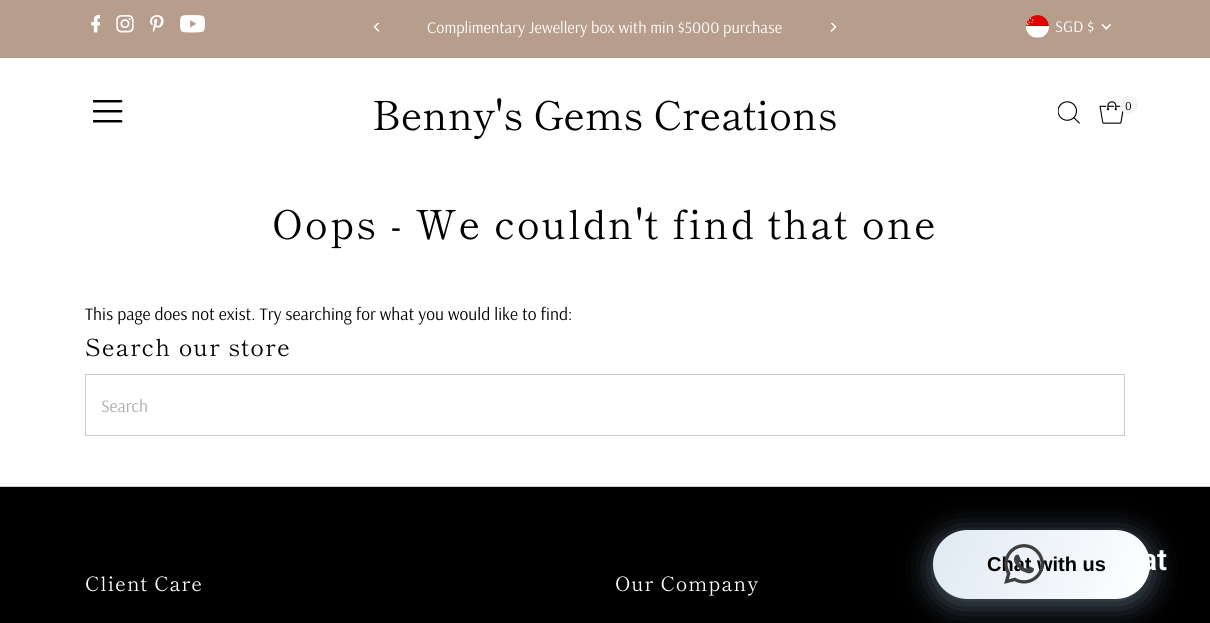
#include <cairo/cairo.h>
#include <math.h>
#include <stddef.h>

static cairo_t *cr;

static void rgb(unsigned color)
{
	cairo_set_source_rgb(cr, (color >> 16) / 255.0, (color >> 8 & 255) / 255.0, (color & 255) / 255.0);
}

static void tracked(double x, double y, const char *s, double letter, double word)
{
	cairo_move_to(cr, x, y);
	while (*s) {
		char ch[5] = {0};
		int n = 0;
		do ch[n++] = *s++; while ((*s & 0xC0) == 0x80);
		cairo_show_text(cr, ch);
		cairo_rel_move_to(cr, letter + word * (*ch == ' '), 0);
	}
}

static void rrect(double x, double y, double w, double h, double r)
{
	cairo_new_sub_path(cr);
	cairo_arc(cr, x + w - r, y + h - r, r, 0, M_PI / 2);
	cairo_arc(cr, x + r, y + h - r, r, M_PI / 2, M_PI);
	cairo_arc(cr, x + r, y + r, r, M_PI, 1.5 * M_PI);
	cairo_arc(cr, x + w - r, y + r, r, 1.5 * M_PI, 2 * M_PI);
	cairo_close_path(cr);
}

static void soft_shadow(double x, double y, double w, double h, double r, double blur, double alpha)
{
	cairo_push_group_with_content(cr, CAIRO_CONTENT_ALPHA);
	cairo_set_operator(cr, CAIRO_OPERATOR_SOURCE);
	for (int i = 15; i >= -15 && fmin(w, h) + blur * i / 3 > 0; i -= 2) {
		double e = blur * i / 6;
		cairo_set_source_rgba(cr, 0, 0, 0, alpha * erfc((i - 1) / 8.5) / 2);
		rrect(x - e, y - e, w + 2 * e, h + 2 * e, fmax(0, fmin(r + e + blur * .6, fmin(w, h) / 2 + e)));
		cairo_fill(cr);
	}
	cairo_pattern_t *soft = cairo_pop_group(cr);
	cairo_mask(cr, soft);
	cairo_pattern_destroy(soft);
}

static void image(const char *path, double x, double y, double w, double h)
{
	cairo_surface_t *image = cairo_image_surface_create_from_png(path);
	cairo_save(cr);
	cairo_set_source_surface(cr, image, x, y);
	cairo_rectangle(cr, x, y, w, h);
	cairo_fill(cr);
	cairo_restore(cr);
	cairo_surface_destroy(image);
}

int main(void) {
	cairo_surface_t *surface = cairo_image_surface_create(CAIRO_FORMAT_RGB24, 1210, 623);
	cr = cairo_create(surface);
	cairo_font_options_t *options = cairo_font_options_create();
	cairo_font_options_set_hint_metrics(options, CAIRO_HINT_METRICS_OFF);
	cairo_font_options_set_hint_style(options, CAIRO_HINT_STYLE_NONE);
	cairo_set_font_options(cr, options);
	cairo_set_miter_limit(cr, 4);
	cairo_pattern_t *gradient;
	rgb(0xffffff);
	cairo_paint(cr);
	rgb(0xb79e8c);
	cairo_rectangle(cr, 0, 0, 1210, 58);
	cairo_fill(cr);
	image("img/1.png", 91, 15, 9, 18);
	image("img/2.png", 116, 15, 18, 18);
	image("img/3.png", 150, 15, 14, 18);
	image("img/4.png", 180, 15, 25, 18);
	image("img/5.png", 373, 23, 7, 9);
	image("img/6.png", 830, 23, 7, 9);
	image("img/7.png", 1026, 15, 23, 23);
	image("img/8.png", 1101, 24, 10, 6);
	image("img/9.png", 93, 100, 30, 23);
	image("img/10.png", 1058, 101, 22, 23);
	image("img/11.png", 1099, 101, 25, 23);
	rgb(0xf5f5f5);
	cairo_arc(cr, 1129, 105, 9, 0, 2 * M_PI);
	cairo_fill(cr);
	cairo_rectangle(cr, 85.5, 374.5, 1039, 61);
	rgb(0xcccccc);
	cairo_set_line_width(cr, 1);
	cairo_stroke(cr);
	rgb(0x000000);
	cairo_rectangle(cr, 0, 487, 1210, 136);
	cairo_fill(cr);
	rgb(0xcccccc);
	cairo_rectangle(cr, 0, 486, 1210, 1);
	cairo_fill(cr);
	rgb(0x9fbedd);
	soft_shadow(933, 535, 217, 69, 34.5, 15, 0.5);
	cairo_select_font_face(cr, "Arsenal", CAIRO_FONT_SLANT_NORMAL, CAIRO_FONT_WEIGHT_NORMAL);
	cairo_set_font_size(cr, 16.25);
	rgb(0xffffff);
	cairo_move_to(cr, 427, 33);
	cairo_show_text(cr, "Complimentary Jewellery box with min $5000 purchase");
	cairo_move_to(cr, 1055, 32);
	cairo_show_text(cr, "SGD $");
	cairo_select_font_face(cr, "Shippori Mincho", CAIRO_FONT_SLANT_NORMAL, CAIRO_FONT_WEIGHT_NORMAL);
	cairo_set_font_size(cr, 40);
	rgb(0x000000);
	cairo_move_to(cr, 372, 130);
	cairo_show_text(cr, "Benny's Gems Creations");
	cairo_select_font_face(cr, "Arsenal", CAIRO_FONT_SLANT_NORMAL, CAIRO_FONT_WEIGHT_NORMAL);
	cairo_set_font_size(cr, 12);
	cairo_move_to(cr, 1125, 110);
	cairo_show_text(cr, "0");
	cairo_select_font_face(cr, "Shippori Mincho", CAIRO_FONT_SLANT_NORMAL, CAIRO_FONT_WEIGHT_NORMAL);
	cairo_set_font_size(cr, 40);
	tracked(272, 239, "Oops - We couldn't find that one", 2, 0);
	cairo_select_font_face(cr, "Arsenal", CAIRO_FONT_SLANT_NORMAL, CAIRO_FONT_WEIGHT_NORMAL);
	cairo_set_font_size(cr, 17.5);
	cairo_move_to(cr, 85, 320);
	cairo_show_text(cr, "This page does not exist. Try searching for what you would like to find:");
	cairo_select_font_face(cr, "Shippori Mincho", CAIRO_FONT_SLANT_NORMAL, CAIRO_FONT_WEIGHT_NORMAL);
	cairo_set_font_size(cr, 23.75);
	tracked(85, 356, "Search our store", 1.25, 0);
	cairo_select_font_face(cr, "Arsenal", CAIRO_FONT_SLANT_NORMAL, CAIRO_FONT_WEIGHT_NORMAL);
	cairo_set_font_size(cr, 17.5);
	rgb(0xaaaaaa);
	cairo_move_to(cr, 101, 412);
	cairo_show_text(cr, "Search");
	cairo_select_font_face(cr, "Shippori Mincho", CAIRO_FONT_SLANT_NORMAL, CAIRO_FONT_WEIGHT_NORMAL);
	cairo_set_font_size(cr, 20);
	rgb(0xffffff);
	tracked(85, 591, "Client Care", 1, 0);
	tracked(615, 591, "Our Company", 1, 0);
	cairo_select_font_face(cr, "Roboto SemiBold", CAIRO_FONT_SLANT_NORMAL, CAIRO_FONT_WEIGHT_NORMAL);
	cairo_set_font_size(cr, 30);
	cairo_move_to(cr, 1141, 570);
	cairo_show_text(cr, "at");
	gradient = cairo_pattern_create_linear(939, 517, 1144, 612);
	cairo_pattern_add_color_stop_rgba(gradient, 0, 0.875, 0.914, 0.953, 1);
	cairo_pattern_add_color_stop_rgba(gradient, 1, 1, 1, 1, 1);
	cairo_set_source(cr, gradient);
	cairo_pattern_destroy(gradient);
	rrect(933, 530, 217, 69, 34.5);
	cairo_fill(cr);
	cairo_select_font_face(cr, "Liberation Sans", CAIRO_FONT_SLANT_NORMAL, CAIRO_FONT_WEIGHT_BOLD);
	cairo_set_font_size(cr, 20);
	rgb(0x000000);
	cairo_move_to(cr, 987, 571);
	cairo_show_text(cr, "Chat with us");
	image("img/12.png", 1004, 544, 40, 40);
	cairo_surface_write_to_png(surface, "page.png");
	cairo_font_options_destroy(options);
	cairo_destroy(cr);
	cairo_surface_destroy(surface);
	return 0;
}
